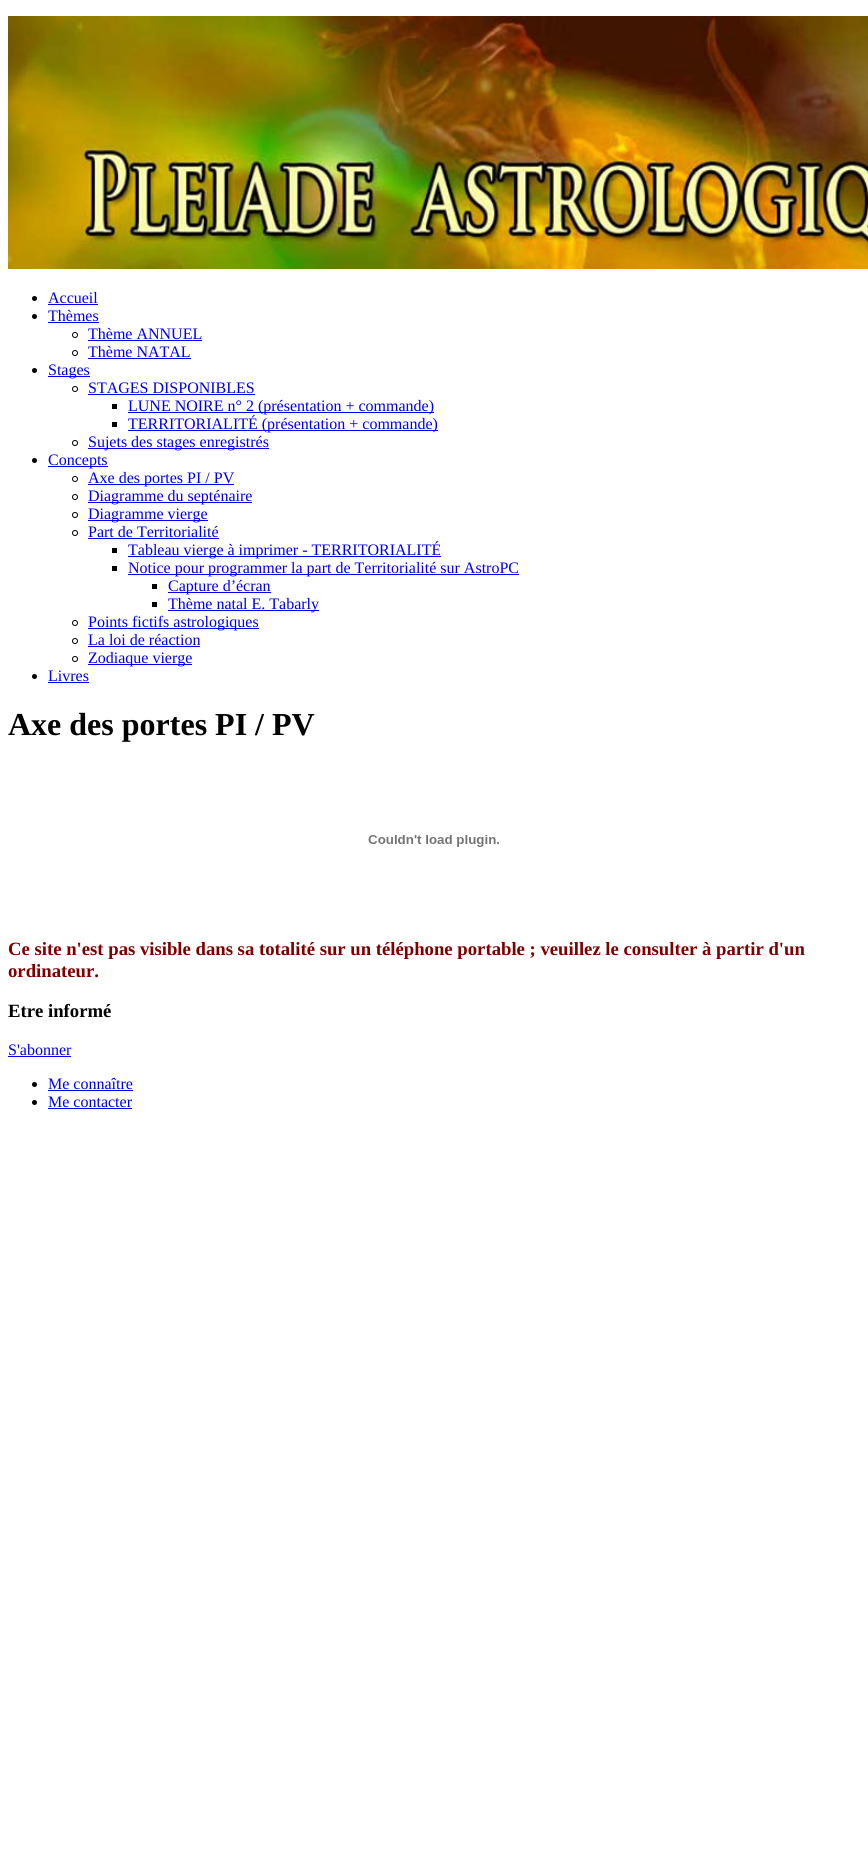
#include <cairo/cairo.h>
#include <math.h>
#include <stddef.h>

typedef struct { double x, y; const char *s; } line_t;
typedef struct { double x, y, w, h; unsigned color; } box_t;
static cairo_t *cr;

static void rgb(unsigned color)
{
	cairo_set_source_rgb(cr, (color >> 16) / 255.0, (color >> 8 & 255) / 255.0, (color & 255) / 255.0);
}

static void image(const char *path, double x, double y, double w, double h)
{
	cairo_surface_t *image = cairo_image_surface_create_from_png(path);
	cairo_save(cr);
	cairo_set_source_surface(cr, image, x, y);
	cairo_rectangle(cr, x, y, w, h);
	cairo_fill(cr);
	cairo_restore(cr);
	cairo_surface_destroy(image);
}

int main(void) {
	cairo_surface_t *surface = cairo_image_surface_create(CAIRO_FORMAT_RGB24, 868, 1871);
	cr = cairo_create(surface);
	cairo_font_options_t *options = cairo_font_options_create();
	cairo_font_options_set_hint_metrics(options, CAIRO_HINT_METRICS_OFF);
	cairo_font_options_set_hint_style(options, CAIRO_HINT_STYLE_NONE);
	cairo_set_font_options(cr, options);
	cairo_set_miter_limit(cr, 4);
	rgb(0xffffff);
	cairo_paint(cr);
	image("img/1.png", 8, 16, 860, 253);
	rgb(0x000000);
	cairo_arc(cr, 34.5, 298.5, 2.5, 0, 2 * M_PI);
	cairo_fill(cr);
	rgb(0x0000ee);
	cairo_rectangle(cr, 48, 304, 50, 1);
	cairo_fill(cr);
	rgb(0x000000);
	cairo_arc(cr, 34.5, 316.5, 2.5, 0, 2 * M_PI);
	cairo_fill(cr);
	rgb(0x0000ee);
	cairo_rectangle(cr, 48, 322, 51, 1);
	cairo_fill(cr);
	cairo_arc(cr, 75, 335, 2.5, 0, 2 * M_PI);
	rgb(0x000000);
	cairo_set_line_width(cr, 1);
	cairo_stroke(cr);
	rgb(0x0000ee);
	cairo_rectangle(cr, 88, 340, 114, 1);
	cairo_fill(cr);
	cairo_arc(cr, 75, 353, 2.5, 0, 2 * M_PI);
	rgb(0x000000);
	cairo_stroke(cr);
	rgb(0x0000ee);
	cairo_rectangle(cr, 88, 358, 103, 1);
	cairo_fill(cr);
	rgb(0x000000);
	cairo_arc(cr, 34.5, 370.5, 2.5, 0, 2 * M_PI);
	cairo_fill(cr);
	rgb(0x0000ee);
	cairo_rectangle(cr, 48, 376, 42, 1);
	cairo_fill(cr);
	cairo_arc(cr, 75, 389, 2.5, 0, 2 * M_PI);
	rgb(0x000000);
	cairo_stroke(cr);
	{
		static const box_t items[] = {
			{88, 394, 167, 1, 0x0000ee},
			{112, 404, 5, 5, 0x000000},
			{128, 412, 306, 1, 0x0000ee},
			{112, 422, 5, 5, 0x000000},
			{128, 430, 310, 1, 0x0000ee},
		};
		for (size_t i = 0; i < sizeof items / sizeof *items; i++) {
			rgb(items[i].color);
			cairo_rectangle(cr, items[i].x, items[i].y, items[i].w, items[i].h);
			cairo_fill(cr);
		}
	}
	cairo_arc(cr, 75, 443, 2.5, 0, 2 * M_PI);
	rgb(0x000000);
	cairo_stroke(cr);
	rgb(0x0000ee);
	cairo_rectangle(cr, 88, 448, 181, 1);
	cairo_fill(cr);
	rgb(0x000000);
	cairo_arc(cr, 34.5, 460.5, 2.5, 0, 2 * M_PI);
	cairo_fill(cr);
	rgb(0x0000ee);
	cairo_rectangle(cr, 48, 466, 60, 1);
	cairo_fill(cr);
	cairo_arc(cr, 75, 479, 2.5, 0, 2 * M_PI);
	rgb(0x000000);
	cairo_stroke(cr);
	rgb(0x0000ee);
	cairo_rectangle(cr, 88, 484, 146, 1);
	cairo_fill(cr);
	cairo_arc(cr, 75, 497, 2.5, 0, 2 * M_PI);
	rgb(0x000000);
	cairo_stroke(cr);
	rgb(0x0000ee);
	cairo_rectangle(cr, 88, 502, 164, 1);
	cairo_fill(cr);
	cairo_arc(cr, 75, 515, 2.5, 0, 2 * M_PI);
	rgb(0x000000);
	cairo_stroke(cr);
	rgb(0x0000ee);
	cairo_rectangle(cr, 88, 520, 120, 1);
	cairo_fill(cr);
	cairo_arc(cr, 75, 533, 2.5, 0, 2 * M_PI);
	rgb(0x000000);
	cairo_stroke(cr);
	{
		static const box_t items[] = {
			{88, 538, 131, 1, 0x0000ee},
			{112, 548, 5, 5, 0x000000},
			{128, 556, 313, 1, 0x0000ee},
			{112, 566, 5, 5, 0x000000},
			{128, 574, 391, 1, 0x0000ee},
			{152, 584, 5, 5, 0x000000},
			{168, 592, 103, 1, 0x0000ee},
			{152, 602, 5, 5, 0x000000},
			{168, 610, 151, 1, 0x0000ee},
		};
		for (size_t i = 0; i < sizeof items / sizeof *items; i++) {
			rgb(items[i].color);
			cairo_rectangle(cr, items[i].x, items[i].y, items[i].w, items[i].h);
			cairo_fill(cr);
		}
	}
	cairo_arc(cr, 75, 623, 2.5, 0, 2 * M_PI);
	rgb(0x000000);
	cairo_stroke(cr);
	rgb(0x0000ee);
	cairo_rectangle(cr, 88, 628, 171, 1);
	cairo_fill(cr);
	cairo_arc(cr, 75, 641, 2.5, 0, 2 * M_PI);
	rgb(0x000000);
	cairo_stroke(cr);
	rgb(0x0000ee);
	cairo_rectangle(cr, 88, 646, 112, 1);
	cairo_fill(cr);
	cairo_arc(cr, 75, 659, 2.5, 0, 2 * M_PI);
	rgb(0x000000);
	cairo_stroke(cr);
	rgb(0x0000ee);
	cairo_rectangle(cr, 88, 664, 104, 1);
	cairo_fill(cr);
	rgb(0x000000);
	cairo_arc(cr, 34.5, 676.5, 2.5, 0, 2 * M_PI);
	cairo_fill(cr);
	rgb(0x0000ee);
	cairo_rectangle(cr, 48, 682, 41, 1);
	cairo_fill(cr);
	image("img/2.png", 368, 835, 131, 12);
	cairo_rectangle(cr, 8, 1056, 63, 1);
	cairo_fill(cr);
	rgb(0x000000);
	cairo_arc(cr, 34.5, 1084.5, 2.5, 0, 2 * M_PI);
	cairo_fill(cr);
	rgb(0x0000ee);
	cairo_rectangle(cr, 48, 1090, 85, 1);
	cairo_fill(cr);
	rgb(0x000000);
	cairo_arc(cr, 34.5, 1102.5, 2.5, 0, 2 * M_PI);
	cairo_fill(cr);
	rgb(0x0000ee);
	cairo_rectangle(cr, 48, 1108, 84, 1);
	cairo_fill(cr);
	cairo_select_font_face(cr, "Liberation Serif", CAIRO_FONT_SLANT_NORMAL, CAIRO_FONT_WEIGHT_NORMAL);
	cairo_set_font_size(cr, 16);
	{
		static const line_t items[] = {
			{48, 303, "Accueil"},
			{48, 321, "Thèmes"},
			{88, 339, "Thème ANNUEL"},
			{88, 357, "Thème NATAL"},
			{48, 375, "Stages"},
			{88, 393, "STAGES DISPONIBLES"},
			{128, 411, "LUNE NOIRE n° 2 (présentation + commande)"},
			{128, 429, "TERRITORIALITÉ (présentation + commande)"},
			{88, 447, "Sujets des stages enregistrés"},
			{48, 465, "Concepts"},
			{88, 483, "Axe des portes PI / PV"},
			{88, 501, "Diagramme du septénaire"},
			{88, 519, "Diagramme vierge"},
			{88, 537, "Part de Territorialité"},
			{128, 555, "Tableau vierge à imprimer - TERRITORIALITÉ"},
			{128, 573, "Notice pour programmer la part de Territorialité sur AstroPC"},
			{168, 591, "Capture d’écran"},
			{168, 609, "Thème natal E. Tabarly"},
			{88, 627, "Points fictifs astrologiques"},
			{88, 645, "La loi de réaction"},
			{88, 663, "Zodiaque vierge"},
			{48, 681, "Livres"},
		};
		for (size_t i = 0; i < sizeof items / sizeof *items; i++) {
			cairo_move_to(cr, items[i].x, items[i].y);
			cairo_show_text(cr, items[i].s);
		}
	}
	cairo_select_font_face(cr, "Liberation Serif", CAIRO_FONT_SLANT_NORMAL, CAIRO_FONT_WEIGHT_BOLD);
	cairo_set_font_size(cr, 32);
	rgb(0x000000);
	cairo_move_to(cr, 8, 735);
	cairo_show_text(cr, "Axe des portes PI / PV");
	cairo_set_font_size(cr, 18.7);
	rgb(0x800000);
	cairo_move_to(cr, 8, 955);
	cairo_show_text(cr, "Ce site n'est pas visible dans sa totalité sur un téléphone portable ; veuillez le consulter à partir d'un");
	cairo_move_to(cr, 8, 977);
	cairo_show_text(cr, "ordinateur.");
	rgb(0x000000);
	cairo_move_to(cr, 8, 1017);
	cairo_show_text(cr, "Etre informé");
	cairo_select_font_face(cr, "Liberation Serif", CAIRO_FONT_SLANT_NORMAL, CAIRO_FONT_WEIGHT_NORMAL);
	cairo_set_font_size(cr, 16);
	rgb(0x0000ee);
	{
		static const line_t items[] = {
			{8, 1055, "S'abonner"},
			{48, 1089, "Me connaître"},
			{48, 1107, "Me contacter"},
		};
		for (size_t i = 0; i < sizeof items / sizeof *items; i++) {
			cairo_move_to(cr, items[i].x, items[i].y);
			cairo_show_text(cr, items[i].s);
		}
	}
	cairo_surface_write_to_png(surface, "page.png");
	cairo_font_options_destroy(options);
	cairo_destroy(cr);
	cairo_surface_destroy(surface);
	return 0;
}
